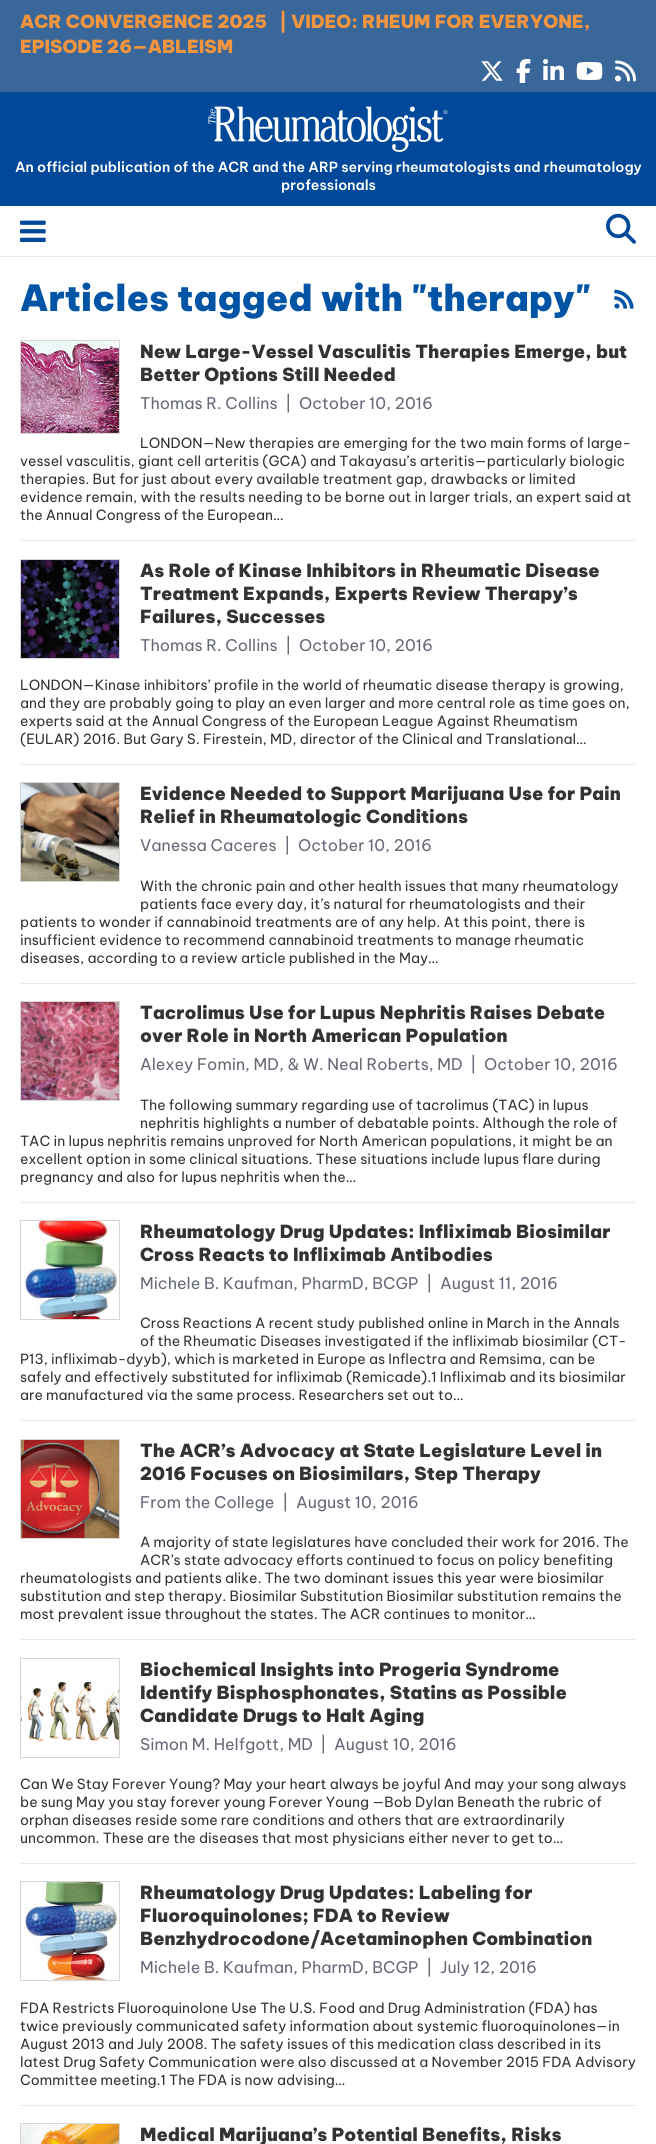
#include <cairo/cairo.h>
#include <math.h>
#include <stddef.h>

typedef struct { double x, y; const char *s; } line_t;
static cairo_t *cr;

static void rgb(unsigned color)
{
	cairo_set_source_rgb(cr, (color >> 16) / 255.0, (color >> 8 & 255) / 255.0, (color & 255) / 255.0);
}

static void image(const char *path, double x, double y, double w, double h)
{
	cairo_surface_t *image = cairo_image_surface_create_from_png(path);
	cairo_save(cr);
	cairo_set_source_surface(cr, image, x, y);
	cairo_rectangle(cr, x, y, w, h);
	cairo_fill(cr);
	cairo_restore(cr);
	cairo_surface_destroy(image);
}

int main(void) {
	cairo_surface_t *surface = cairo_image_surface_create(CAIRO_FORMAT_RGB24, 656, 2144);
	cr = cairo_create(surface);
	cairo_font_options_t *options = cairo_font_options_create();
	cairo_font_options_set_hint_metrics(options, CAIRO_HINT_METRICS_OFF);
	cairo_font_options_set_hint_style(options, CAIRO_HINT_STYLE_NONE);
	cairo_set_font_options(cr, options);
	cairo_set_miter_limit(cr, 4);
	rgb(0xffffff);
	cairo_paint(cr);
	rgb(0x3a6799);
	cairo_rectangle(cr, 0, 0, 656, 92);
	cairo_fill(cr);
	image("img/1.png", 481, 61, 22, 20);
	image("img/2.png", 516, 59, 15, 24);
	image("img/3.png", 543, 59, 21, 21);
	image("img/4.png", 576, 62, 27, 18);
	image("img/5.png", 615, 60, 21, 22);
	rgb(0x004899);
	cairo_rectangle(cr, 0, 92, 656, 114);
	cairo_fill(cr);
	image("img/6.png", 208, 106, 240, 46);
	rgb(0xe9eaec);
	cairo_rectangle(cr, 0, 256, 656, 1);
	cairo_fill(cr);
	image("img/7.png", 20, 220, 26, 22);
	image("img/8.png", 606, 213, 30, 31);
	image("img/9.png", 614, 289, 20, 20);
	cairo_rectangle(cr, 20.5, 340.5, 99, 93);
	rgb(0xd7d7d7);
	cairo_set_line_width(cr, 1);
	cairo_stroke(cr);
	image("img/10.png", 21, 341, 98, 92);
	rgb(0xe9e9e9);
	cairo_rectangle(cr, 20, 540, 616, 1);
	cairo_fill(cr);
	cairo_rectangle(cr, 20.5, 559.5, 99, 99);
	rgb(0xd7d7d7);
	cairo_stroke(cr);
	image("img/11.png", 21, 560, 98, 98);
	rgb(0xe9e9e9);
	cairo_rectangle(cr, 20, 764, 616, 1);
	cairo_fill(cr);
	cairo_rectangle(cr, 20.5, 782.5, 99, 99);
	rgb(0xd7d7d7);
	cairo_stroke(cr);
	image("img/12.png", 21, 783, 98, 98);
	rgb(0xe9e9e9);
	cairo_rectangle(cr, 20, 983, 616, 1);
	cairo_fill(cr);
	cairo_rectangle(cr, 20.5, 1001.5, 99, 99);
	rgb(0xd7d7d7);
	cairo_stroke(cr);
	image("img/13.png", 21, 1002, 98, 98);
	rgb(0xe9e9e9);
	cairo_rectangle(cr, 20, 1202, 616, 1);
	cairo_fill(cr);
	cairo_rectangle(cr, 20.5, 1220.5, 99, 99);
	rgb(0xd7d7d7);
	cairo_stroke(cr);
	image("img/14.png", 21, 1221, 98, 98);
	rgb(0xe9e9e9);
	cairo_rectangle(cr, 20, 1420, 616, 1);
	cairo_fill(cr);
	cairo_rectangle(cr, 20.5, 1439.5, 99, 99);
	rgb(0xd7d7d7);
	cairo_stroke(cr);
	image("img/15.png", 21, 1440, 98, 98);
	rgb(0xe9e9e9);
	cairo_rectangle(cr, 20, 1639, 616, 1);
	cairo_fill(cr);
	cairo_rectangle(cr, 20.5, 1658.5, 99, 99);
	rgb(0xd7d7d7);
	cairo_stroke(cr);
	image("img/16.png", 21, 1682, 98, 60);
	rgb(0xe9e9e9);
	cairo_rectangle(cr, 20, 1863, 616, 1);
	cairo_fill(cr);
	cairo_rectangle(cr, 20.5, 1881.5, 99, 99);
	rgb(0xd7d7d7);
	cairo_stroke(cr);
	image("img/17.png", 21, 1882, 97, 98);
	rgb(0xe9e9e9);
	cairo_rectangle(cr, 20, 2105, 616, 1);
	cairo_fill(cr);
	cairo_rectangle(cr, 20.5, 2123.5, 99, 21);
	rgb(0xd7d7d7);
	cairo_stroke(cr);
	image("img/18.png", 21, 2124, 98, 20);
	cairo_select_font_face(cr, "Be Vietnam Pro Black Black", CAIRO_FONT_SLANT_NORMAL, CAIRO_FONT_WEIGHT_NORMAL);
	cairo_set_font_size(cr, 18);
	rgb(0xf3953f);
	{
		static const line_t items[] = {
			{20, 28, "ACR CONVERGENCE 2025"},
			{279, 28, "| VIDEO: RHEUM FOR EVERYONE,"},
			{20, 53, "EPISODE 26—ABLEISM"},
		};
		for (size_t i = 0; i < sizeof items / sizeof *items; i++) {
			cairo_move_to(cr, items[i].x, items[i].y);
			cairo_show_text(cr, items[i].s);
		}
	}
	cairo_select_font_face(cr, "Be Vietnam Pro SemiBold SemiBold", CAIRO_FONT_SLANT_NORMAL, CAIRO_FONT_WEIGHT_NORMAL);
	cairo_set_font_size(cr, 14);
	rgb(0xffffff);
	cairo_move_to(cr, 15, 172);
	cairo_show_text(cr, "An official publication of the ACR and the ARP serving rheumatologists and rheumatology");
	cairo_move_to(cr, 281, 190);
	cairo_show_text(cr, "professionals");
	cairo_select_font_face(cr, "Be Vietnam Pro Black Black", CAIRO_FONT_SLANT_NORMAL, CAIRO_FONT_WEIGHT_NORMAL);
	cairo_set_font_size(cr, 36);
	rgb(0x0054a6);
	cairo_move_to(cr, 20, 311);
	cairo_show_text(cr, "Articles tagged with \"therapy\"");
	cairo_set_font_size(cr, 18);
	rgb(0x333333);
	cairo_move_to(cr, 140, 358);
	cairo_show_text(cr, "New Large-Vessel Vasculitis Therapies Emerge, but");
	cairo_move_to(cr, 140, 381);
	cairo_show_text(cr, "Better Options Still Needed");
	cairo_select_font_face(cr, "Be Vietnam Pro", CAIRO_FONT_SLANT_NORMAL, CAIRO_FONT_WEIGHT_NORMAL);
	cairo_set_font_size(cr, 16);
	rgb(0x656976);
	{
		static const line_t items[] = {
			{140, 409, "Thomas R. Collins"},
			{285, 409, "|"},
			{299, 409, "October 10, 2016"},
		};
		for (size_t i = 0; i < sizeof items / sizeof *items; i++) {
			cairo_move_to(cr, items[i].x, items[i].y);
			cairo_show_text(cr, items[i].s);
		}
	}
	cairo_set_font_size(cr, 14);
	rgb(0x333333);
	{
		static const line_t items[] = {
			{140, 448, "LONDON—New therapies are emerging for the two main forms of large-"},
			{20, 466, "vessel vasculitis, giant cell arteritis (GCA) and Takayasu’s arteritis—particularly biologic"},
			{20, 484, "therapies. But for just about every available treatment gap, drawbacks or limited"},
			{20, 502, "evidence remain, with the results needing to be borne out in larger trials, an expert said at"},
			{20, 520, "the Annual Congress of the European…"},
		};
		for (size_t i = 0; i < sizeof items / sizeof *items; i++) {
			cairo_move_to(cr, items[i].x, items[i].y);
			cairo_show_text(cr, items[i].s);
		}
	}
	cairo_select_font_face(cr, "Be Vietnam Pro Black Black", CAIRO_FONT_SLANT_NORMAL, CAIRO_FONT_WEIGHT_NORMAL);
	cairo_set_font_size(cr, 18);
	{
		static const line_t items[] = {
			{140, 577, "As Role of Kinase Inhibitors in Rheumatic Disease"},
			{140, 600, "Treatment Expands, Experts Review Therapy’s"},
			{140, 623, "Failures, Successes"},
		};
		for (size_t i = 0; i < sizeof items / sizeof *items; i++) {
			cairo_move_to(cr, items[i].x, items[i].y);
			cairo_show_text(cr, items[i].s);
		}
	}
	cairo_select_font_face(cr, "Be Vietnam Pro", CAIRO_FONT_SLANT_NORMAL, CAIRO_FONT_WEIGHT_NORMAL);
	cairo_set_font_size(cr, 16);
	rgb(0x656976);
	{
		static const line_t items[] = {
			{140, 651, "Thomas R. Collins"},
			{285, 651, "|"},
			{299, 651, "October 10, 2016"},
		};
		for (size_t i = 0; i < sizeof items / sizeof *items; i++) {
			cairo_move_to(cr, items[i].x, items[i].y);
			cairo_show_text(cr, items[i].s);
		}
	}
	cairo_set_font_size(cr, 14);
	rgb(0x333333);
	{
		static const line_t items[] = {
			{20, 690, "LONDON—Kinase inhibitors’ profile in the world of rheumatic disease therapy is growing,"},
			{20, 708, "and they are probably going to play an even larger and more central role as time goes on,"},
			{20, 726, "experts said at the Annual Congress of the European League Against Rheumatism"},
			{20, 744, "(EULAR) 2016. But Gary S. Firestein, MD, director of the Clinical and Translational…"},
		};
		for (size_t i = 0; i < sizeof items / sizeof *items; i++) {
			cairo_move_to(cr, items[i].x, items[i].y);
			cairo_show_text(cr, items[i].s);
		}
	}
	cairo_select_font_face(cr, "Be Vietnam Pro Black Black", CAIRO_FONT_SLANT_NORMAL, CAIRO_FONT_WEIGHT_NORMAL);
	cairo_set_font_size(cr, 18);
	cairo_move_to(cr, 140, 800);
	cairo_show_text(cr, "Evidence Needed to Support Marijuana Use for Pain");
	cairo_move_to(cr, 140, 823);
	cairo_show_text(cr, "Relief in Rheumatologic Conditions");
	cairo_select_font_face(cr, "Be Vietnam Pro", CAIRO_FONT_SLANT_NORMAL, CAIRO_FONT_WEIGHT_NORMAL);
	cairo_set_font_size(cr, 16);
	rgb(0x656976);
	{
		static const line_t items[] = {
			{140, 851, "Vanessa Caceres"},
			{284, 851, "|"},
			{298, 851, "October 10, 2016"},
		};
		for (size_t i = 0; i < sizeof items / sizeof *items; i++) {
			cairo_move_to(cr, items[i].x, items[i].y);
			cairo_show_text(cr, items[i].s);
		}
	}
	cairo_set_font_size(cr, 14);
	rgb(0x333333);
	{
		static const line_t items[] = {
			{140, 891, "With the chronic pain and other health issues that many rheumatology"},
			{140, 909, "patients face every day, it’s natural for rheumatologists and their"},
			{20, 927, "patients to wonder if cannabinoid treatments are of any help. At this point, there is"},
			{20, 945, "insufficient evidence to recommend cannabinoid treatments to manage rheumatic"},
			{20, 963, "diseases, according to a review article published in the May…"},
		};
		for (size_t i = 0; i < sizeof items / sizeof *items; i++) {
			cairo_move_to(cr, items[i].x, items[i].y);
			cairo_show_text(cr, items[i].s);
		}
	}
	cairo_select_font_face(cr, "Be Vietnam Pro Black Black", CAIRO_FONT_SLANT_NORMAL, CAIRO_FONT_WEIGHT_NORMAL);
	cairo_set_font_size(cr, 18);
	cairo_move_to(cr, 140, 1019);
	cairo_show_text(cr, "Tacrolimus Use for Lupus Nephritis Raises Debate");
	cairo_move_to(cr, 140, 1042);
	cairo_show_text(cr, "over Role in North American Population");
	cairo_select_font_face(cr, "Be Vietnam Pro", CAIRO_FONT_SLANT_NORMAL, CAIRO_FONT_WEIGHT_NORMAL);
	cairo_set_font_size(cr, 16);
	rgb(0x656976);
	cairo_move_to(cr, 140, 1070);
	cairo_show_text(cr, "Alexey Fomin, MD, & W. Neal Roberts, MD  |");
	cairo_move_to(cr, 484, 1070);
	cairo_show_text(cr, "October 10, 2016");
	cairo_set_font_size(cr, 14);
	rgb(0x333333);
	{
		static const line_t items[] = {
			{140, 1110, "The following summary regarding use of tacrolimus (TAC) in lupus"},
			{140, 1128, "nephritis highlights a number of debatable points. Although the role of"},
			{20, 1146, "TAC in lupus nephritis remains unproved for North American populations, it might be an"},
			{20, 1164, "excellent option in some clinical situations. These situations include lupus flare during"},
			{20, 1182, "pregnancy and also for lupus nephritis when the…"},
		};
		for (size_t i = 0; i < sizeof items / sizeof *items; i++) {
			cairo_move_to(cr, items[i].x, items[i].y);
			cairo_show_text(cr, items[i].s);
		}
	}
	cairo_select_font_face(cr, "Be Vietnam Pro Black Black", CAIRO_FONT_SLANT_NORMAL, CAIRO_FONT_WEIGHT_NORMAL);
	cairo_set_font_size(cr, 18);
	cairo_move_to(cr, 140, 1238);
	cairo_show_text(cr, "Rheumatology Drug Updates: Infliximab Biosimilar");
	cairo_move_to(cr, 140, 1261);
	cairo_show_text(cr, "Cross Reacts to Infliximab Antibodies");
	cairo_select_font_face(cr, "Be Vietnam Pro", CAIRO_FONT_SLANT_NORMAL, CAIRO_FONT_WEIGHT_NORMAL);
	cairo_set_font_size(cr, 16);
	rgb(0x656976);
	{
		static const line_t items[] = {
			{140, 1289, "Michele B. Kaufman, PharmD, BCGP"},
			{426, 1289, "|"},
			{440, 1289, "August 11, 2016"},
		};
		for (size_t i = 0; i < sizeof items / sizeof *items; i++) {
			cairo_move_to(cr, items[i].x, items[i].y);
			cairo_show_text(cr, items[i].s);
		}
	}
	cairo_set_font_size(cr, 14);
	rgb(0x333333);
	{
		static const line_t items[] = {
			{140, 1328, "Cross Reactions A recent study published online in March in the Annals"},
			{140, 1346, "of the Rheumatic Diseases investigated if the infliximab biosimilar (CT-"},
			{20, 1364, "P13, infliximab-dyyb), which is marketed in Europe as Inflectra and Remsima, can be"},
			{20, 1382, "safely and effectively substituted for infliximab (Remicade).1 Infliximab and its biosimilar"},
			{20, 1400, "are manufactured via the same process. Researchers set out to…"},
		};
		for (size_t i = 0; i < sizeof items / sizeof *items; i++) {
			cairo_move_to(cr, items[i].x, items[i].y);
			cairo_show_text(cr, items[i].s);
		}
	}
	cairo_select_font_face(cr, "Be Vietnam Pro Black Black", CAIRO_FONT_SLANT_NORMAL, CAIRO_FONT_WEIGHT_NORMAL);
	cairo_set_font_size(cr, 18);
	cairo_move_to(cr, 140, 1457);
	cairo_show_text(cr, "The ACR’s Advocacy at State Legislature Level in");
	cairo_move_to(cr, 140, 1480);
	cairo_show_text(cr, "2016 Focuses on Biosimilars, Step Therapy");
	cairo_select_font_face(cr, "Be Vietnam Pro", CAIRO_FONT_SLANT_NORMAL, CAIRO_FONT_WEIGHT_NORMAL);
	cairo_set_font_size(cr, 16);
	rgb(0x656976);
	{
		static const line_t items[] = {
			{140, 1508, "From the College"},
			{282, 1508, "|"},
			{296, 1508, "August 10, 2016"},
		};
		for (size_t i = 0; i < sizeof items / sizeof *items; i++) {
			cairo_move_to(cr, items[i].x, items[i].y);
			cairo_show_text(cr, items[i].s);
		}
	}
	cairo_set_font_size(cr, 14);
	rgb(0x333333);
	{
		static const line_t items[] = {
			{140, 1547, "A majority of state legislatures have concluded their work for 2016. The"},
			{140, 1565, "ACR’s state advocacy efforts continued to focus on policy benefiting"},
			{20, 1583, "rheumatologists and patients alike. The two dominant issues this year were biosimilar"},
			{20, 1601, "substitution and step therapy. Biosimilar Substitution Biosimilar substitution remains the"},
			{20, 1619, "most prevalent issue throughout the states. The ACR continues to monitor…"},
		};
		for (size_t i = 0; i < sizeof items / sizeof *items; i++) {
			cairo_move_to(cr, items[i].x, items[i].y);
			cairo_show_text(cr, items[i].s);
		}
	}
	cairo_select_font_face(cr, "Be Vietnam Pro Black Black", CAIRO_FONT_SLANT_NORMAL, CAIRO_FONT_WEIGHT_NORMAL);
	cairo_set_font_size(cr, 18);
	{
		static const line_t items[] = {
			{140, 1676, "Biochemical Insights into Progeria Syndrome"},
			{140, 1699, "Identify Bisphosphonates, Statins as Possible"},
			{140, 1722, "Candidate Drugs to Halt Aging"},
		};
		for (size_t i = 0; i < sizeof items / sizeof *items; i++) {
			cairo_move_to(cr, items[i].x, items[i].y);
			cairo_show_text(cr, items[i].s);
		}
	}
	cairo_select_font_face(cr, "Be Vietnam Pro", CAIRO_FONT_SLANT_NORMAL, CAIRO_FONT_WEIGHT_NORMAL);
	cairo_set_font_size(cr, 16);
	rgb(0x656976);
	{
		static const line_t items[] = {
			{140, 1750, "Simon M. Helfgott, MD"},
			{320, 1750, "|"},
			{334, 1750, "August 10, 2016"},
		};
		for (size_t i = 0; i < sizeof items / sizeof *items; i++) {
			cairo_move_to(cr, items[i].x, items[i].y);
			cairo_show_text(cr, items[i].s);
		}
	}
	cairo_set_font_size(cr, 14);
	rgb(0x333333);
	{
		static const line_t items[] = {
			{20, 1789, "Can We Stay Forever Young? May your heart always be joyful And may your song always"},
			{20, 1807, "be sung May you stay forever young Forever Young —Bob Dylan Beneath the rubric of"},
			{20, 1825, "orphan diseases reside some rare conditions and others that are extraordinarily"},
			{20, 1843, "uncommon. These are the diseases that most physicians either never to get to…"},
		};
		for (size_t i = 0; i < sizeof items / sizeof *items; i++) {
			cairo_move_to(cr, items[i].x, items[i].y);
			cairo_show_text(cr, items[i].s);
		}
	}
	cairo_select_font_face(cr, "Be Vietnam Pro Black Black", CAIRO_FONT_SLANT_NORMAL, CAIRO_FONT_WEIGHT_NORMAL);
	cairo_set_font_size(cr, 18);
	{
		static const line_t items[] = {
			{140, 1899, "Rheumatology Drug Updates: Labeling for"},
			{140, 1922, "Fluoroquinolones; FDA to Review"},
			{140, 1945, "Benzhydrocodone/Acetaminophen Combination"},
		};
		for (size_t i = 0; i < sizeof items / sizeof *items; i++) {
			cairo_move_to(cr, items[i].x, items[i].y);
			cairo_show_text(cr, items[i].s);
		}
	}
	cairo_select_font_face(cr, "Be Vietnam Pro", CAIRO_FONT_SLANT_NORMAL, CAIRO_FONT_WEIGHT_NORMAL);
	cairo_set_font_size(cr, 16);
	rgb(0x656976);
	{
		static const line_t items[] = {
			{140, 1973, "Michele B. Kaufman, PharmD, BCGP"},
			{426, 1973, "|"},
			{440, 1973, "July 12, 2016"},
		};
		for (size_t i = 0; i < sizeof items / sizeof *items; i++) {
			cairo_move_to(cr, items[i].x, items[i].y);
			cairo_show_text(cr, items[i].s);
		}
	}
	cairo_set_font_size(cr, 14);
	rgb(0x333333);
	{
		static const line_t items[] = {
			{20, 2013, "FDA Restricts Fluoroquinolone Use The U.S. Food and Drug Administration (FDA) has"},
			{20, 2031, "twice previously communicated safety information about systemic fluoroquinolones—in"},
			{20, 2049, "August 2013 and July 2008. The safety issues of this medication class described in its"},
			{20, 2067, "latest Drug Safety Communication were also discussed at a November 2015 FDA Advisory"},
			{20, 2085, "Committee meeting.1 The FDA is now advising…"},
		};
		for (size_t i = 0; i < sizeof items / sizeof *items; i++) {
			cairo_move_to(cr, items[i].x, items[i].y);
			cairo_show_text(cr, items[i].s);
		}
	}
	cairo_select_font_face(cr, "Be Vietnam Pro Black Black", CAIRO_FONT_SLANT_NORMAL, CAIRO_FONT_WEIGHT_NORMAL);
	cairo_set_font_size(cr, 18);
	cairo_move_to(cr, 140, 2141);
	cairo_show_text(cr, "Medical Marijuana’s Potential Benefits, Risks");
	cairo_surface_write_to_png(surface, "page.png");
	cairo_font_options_destroy(options);
	cairo_destroy(cr);
	cairo_surface_destroy(surface);
	return 0;
}
